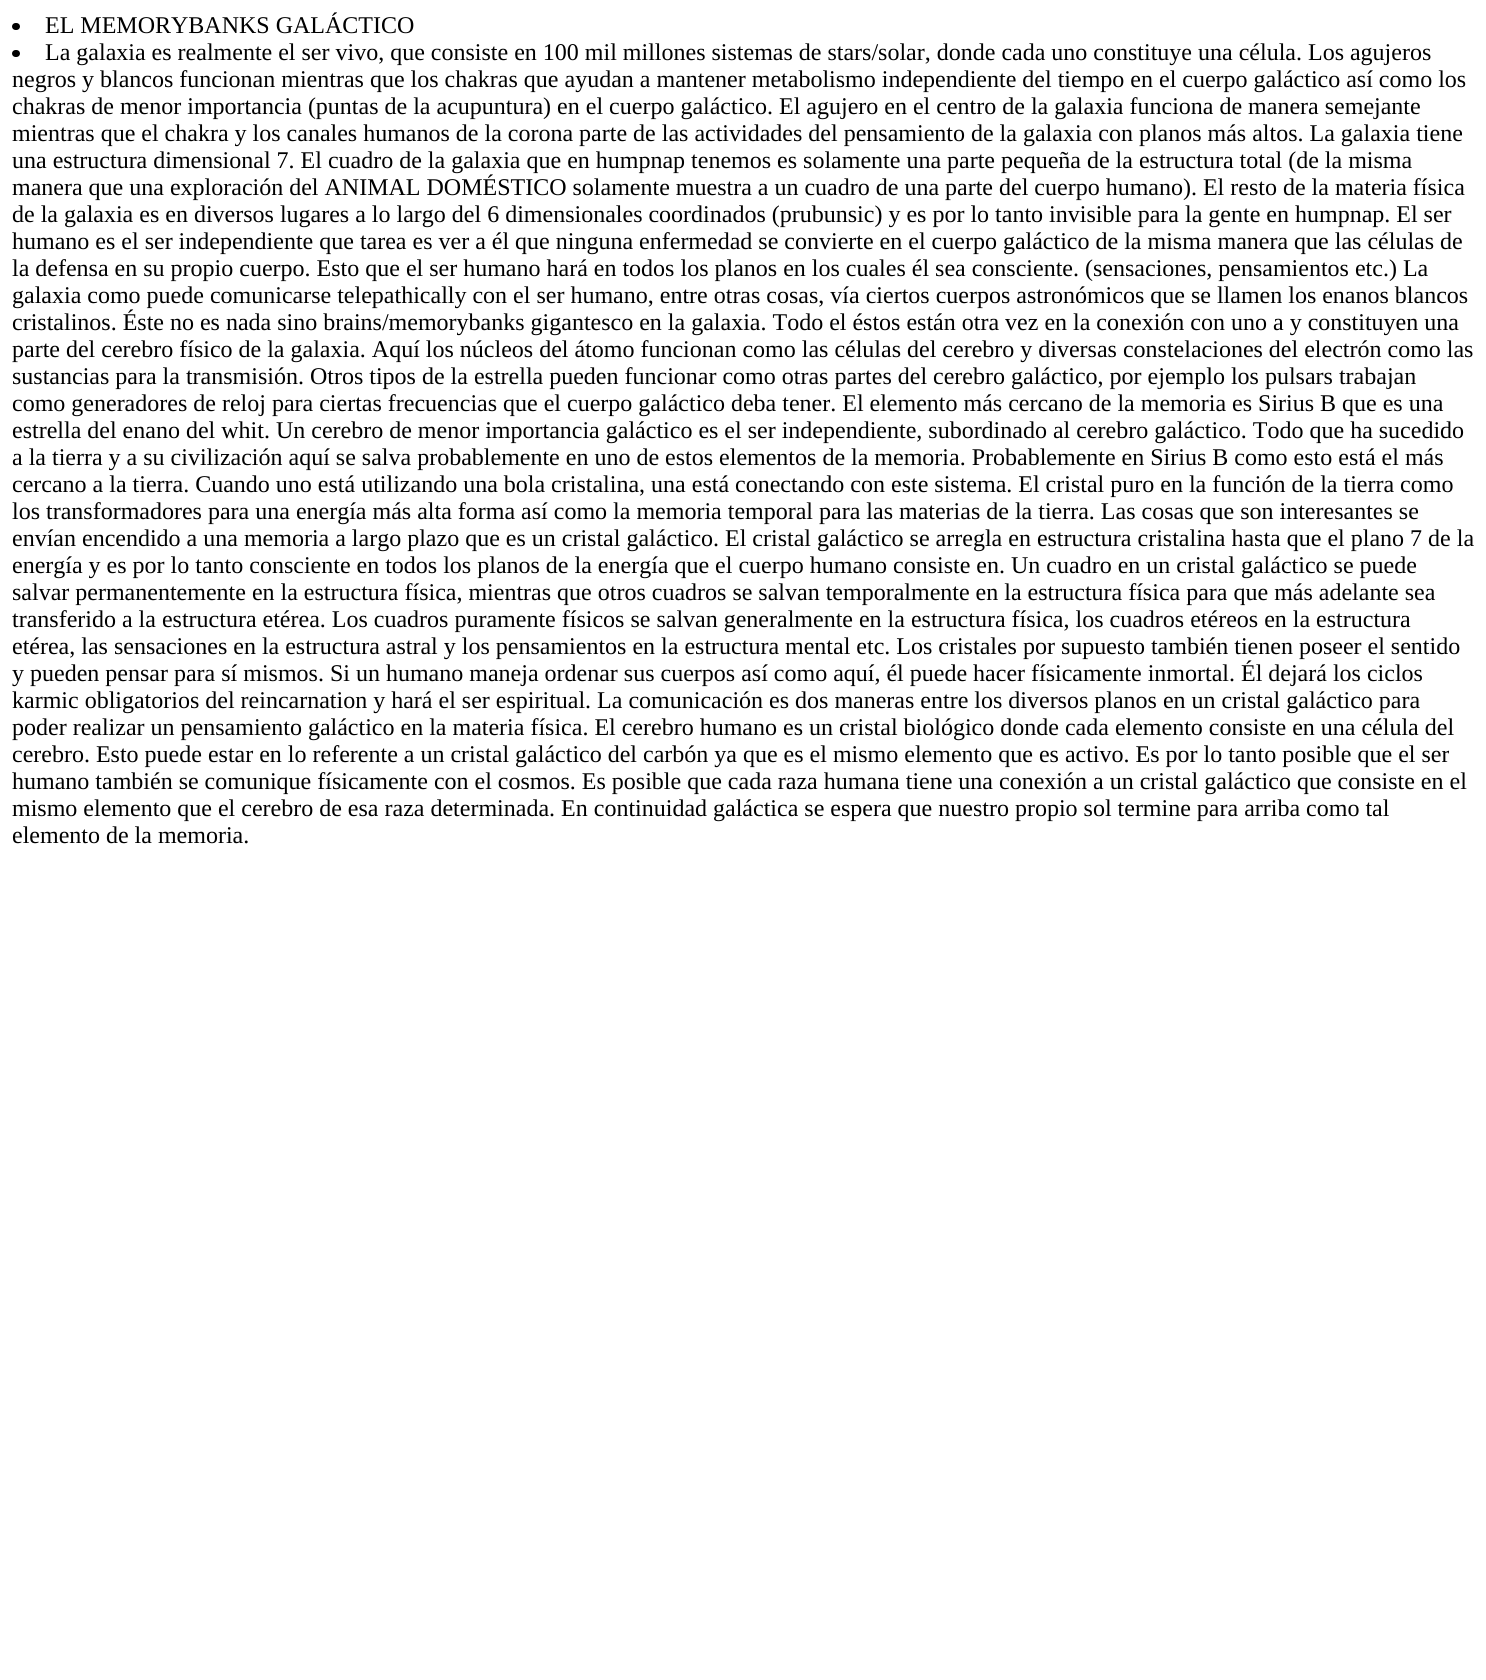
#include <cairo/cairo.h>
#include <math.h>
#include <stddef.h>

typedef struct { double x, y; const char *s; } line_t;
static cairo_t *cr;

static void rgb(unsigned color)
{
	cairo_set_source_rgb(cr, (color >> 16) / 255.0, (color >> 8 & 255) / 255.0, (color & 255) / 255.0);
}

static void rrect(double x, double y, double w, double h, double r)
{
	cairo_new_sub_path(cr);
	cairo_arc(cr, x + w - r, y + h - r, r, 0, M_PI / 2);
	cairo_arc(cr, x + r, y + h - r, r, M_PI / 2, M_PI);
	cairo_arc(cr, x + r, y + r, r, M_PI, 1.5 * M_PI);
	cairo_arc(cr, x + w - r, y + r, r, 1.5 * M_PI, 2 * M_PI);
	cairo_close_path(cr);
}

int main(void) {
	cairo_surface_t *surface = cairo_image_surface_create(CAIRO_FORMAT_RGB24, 1486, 1680);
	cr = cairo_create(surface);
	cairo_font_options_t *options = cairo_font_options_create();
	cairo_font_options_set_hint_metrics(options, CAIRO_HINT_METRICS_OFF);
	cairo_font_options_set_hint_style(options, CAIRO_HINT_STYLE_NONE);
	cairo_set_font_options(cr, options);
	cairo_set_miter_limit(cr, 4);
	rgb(0xffffff);
	cairo_paint(cr);
	rgb(0x000000);
	rrect(12, 23, 8, 7, 3.5);
	cairo_fill(cr);
	rrect(12, 50, 8, 7, 3.5);
	cairo_fill(cr);
	cairo_select_font_face(cr, "Liberation Serif", CAIRO_FONT_SLANT_NORMAL, CAIRO_FONT_WEIGHT_NORMAL);
	cairo_set_font_size(cr, 24);
	{
		static const line_t items[] = {
			{45, 33, "EL MEMORYBANKS GALÁCTICO"},
			{45, 60, "La galaxia es realmente el ser vivo, que consiste en 100 mil millones sistemas de stars/solar, donde cada uno constituye una célula. Los agujeros"},
			{12, 87, "negros y blancos funcionan mientras que los chakras que ayudan a mantener metabolismo independiente del tiempo en el cuerpo galáctico así como los"},
			{12, 114, "chakras de menor importancia (puntas de la acupuntura) en el cuerpo galáctico. El agujero en el centro de la galaxia funciona de manera semejante"},
			{12, 141, "mientras que el chakra y los canales humanos de la corona parte de las actividades del pensamiento de la galaxia con planos más altos. La galaxia tiene"},
			{12, 168, "una estructura dimensional 7. El cuadro de la galaxia que en humpnap tenemos es solamente una parte pequeña de la estructura total (de la misma"},
			{12, 195, "manera que una exploración del ANIMAL DOMÉSTICO solamente muestra a un cuadro de una parte del cuerpo humano). El resto de la materia física"},
			{12, 222, "de la galaxia es en diversos lugares a lo largo del 6 dimensionales coordinados (prubunsic) y es por lo tanto invisible para la gente en humpnap. El ser"},
			{12, 249, "humano es el ser independiente que tarea es ver a él que ninguna enfermedad se convierte en el cuerpo galáctico de la misma manera que las células de"},
			{12, 276, "la defensa en su propio cuerpo. Esto que el ser humano hará en todos los planos en los cuales él sea consciente. (sensaciones, pensamientos etc.) La"},
			{12, 303, "galaxia como puede comunicarse telepathically con el ser humano, entre otras cosas, vía ciertos cuerpos astronómicos que se llamen los enanos blancos"},
			{12, 330, "cristalinos. Éste no es nada sino brains/memorybanks gigantesco en la galaxia. Todo el éstos están otra vez en la conexión con uno a y constituyen una"},
			{12, 357, "parte del cerebro físico de la galaxia. Aquí los núcleos del átomo funcionan como las células del cerebro y diversas constelaciones del electrón como las"},
			{12, 384, "sustancias para la transmisión. Otros tipos de la estrella pueden funcionar como otras partes del cerebro galáctico, por ejemplo los pulsars trabajan"},
			{12, 411, "como generadores de reloj para ciertas frecuencias que el cuerpo galáctico deba tener. El elemento más cercano de la memoria es Sirius B que es una"},
			{12, 438, "estrella del enano del whit. Un cerebro de menor importancia galáctico es el ser independiente, subordinado al cerebro galáctico. Todo que ha sucedido"},
			{12, 465, "a la tierra y a su civilización aquí se salva probablemente en uno de estos elementos de la memoria. Probablemente en Sirius B como esto está el más"},
			{12, 492, "cercano a la tierra. Cuando uno está utilizando una bola cristalina, una está conectando con este sistema. El cristal puro en la función de la tierra como"},
			{12, 519, "los transformadores para una energía más alta forma así como la memoria temporal para las materias de la tierra. Las cosas que son interesantes se"},
			{12, 546, "envían encendido a una memoria a largo plazo que es un cristal galáctico. El cristal galáctico se arregla en estructura cristalina hasta que el plano 7 de la"},
			{12, 573, "energía y es por lo tanto consciente en todos los planos de la energía que el cuerpo humano consiste en. Un cuadro en un cristal galáctico se puede"},
			{12, 600, "salvar permanentemente en la estructura física, mientras que otros cuadros se salvan temporalmente en la estructura física para que más adelante sea"},
			{12, 627, "transferido a la estructura etérea. Los cuadros puramente físicos se salvan generalmente en la estructura física, los cuadros etéreos en la estructura"},
			{12, 654, "etérea, las sensaciones en la estructura astral y los pensamientos en la estructura mental etc. Los cristales por supuesto también tienen poseer el sentido"},
			{12, 681, "y pueden pensar para sí mismos. Si un humano maneja ordenar sus cuerpos así como aquí, él puede hacer físicamente inmortal. Él dejará los ciclos"},
			{12, 708, "karmic obligatorios del reincarnation y hará el ser espiritual. La comunicación es dos maneras entre los diversos planos en un cristal galáctico para"},
			{12, 735, "poder realizar un pensamiento galáctico en la materia física. El cerebro humano es un cristal biológico donde cada elemento consiste en una célula del"},
			{12, 762, "cerebro. Esto puede estar en lo referente a un cristal galáctico del carbón ya que es el mismo elemento que es activo. Es por lo tanto posible que el ser"},
			{12, 789, "humano también se comunique físicamente con el cosmos. Es posible que cada raza humana tiene una conexión a un cristal galáctico que consiste en el"},
			{12, 816, "mismo elemento que el cerebro de esa raza determinada. En continuidad galáctica se espera que nuestro propio sol termine para arriba como tal"},
			{12, 843, "elemento de la memoria."},
		};
		for (size_t i = 0; i < sizeof items / sizeof *items; i++) {
			cairo_move_to(cr, items[i].x, items[i].y);
			cairo_show_text(cr, items[i].s);
		}
	}
	cairo_surface_write_to_png(surface, "page.png");
	cairo_font_options_destroy(options);
	cairo_destroy(cr);
	cairo_surface_destroy(surface);
	return 0;
}
